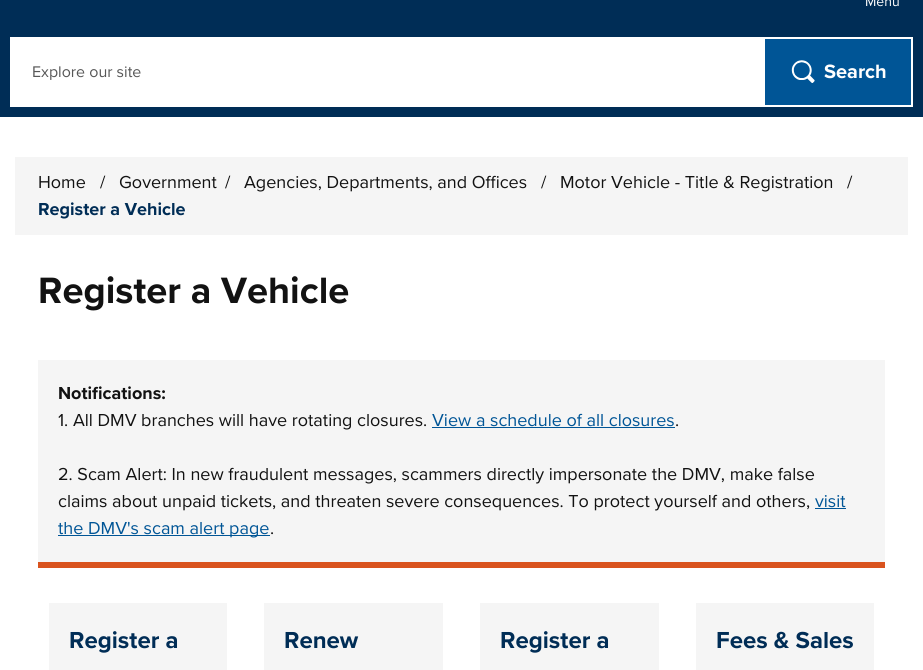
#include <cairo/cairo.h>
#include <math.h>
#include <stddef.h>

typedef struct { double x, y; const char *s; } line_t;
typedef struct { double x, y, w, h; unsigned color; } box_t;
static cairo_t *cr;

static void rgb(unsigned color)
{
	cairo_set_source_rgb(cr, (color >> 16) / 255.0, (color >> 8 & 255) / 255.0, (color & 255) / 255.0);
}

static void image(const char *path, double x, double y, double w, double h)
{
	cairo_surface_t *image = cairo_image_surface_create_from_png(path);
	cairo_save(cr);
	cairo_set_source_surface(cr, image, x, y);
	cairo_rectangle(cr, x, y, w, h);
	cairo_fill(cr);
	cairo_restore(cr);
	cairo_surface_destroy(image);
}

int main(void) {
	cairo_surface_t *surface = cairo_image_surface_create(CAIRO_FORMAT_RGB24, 923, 670);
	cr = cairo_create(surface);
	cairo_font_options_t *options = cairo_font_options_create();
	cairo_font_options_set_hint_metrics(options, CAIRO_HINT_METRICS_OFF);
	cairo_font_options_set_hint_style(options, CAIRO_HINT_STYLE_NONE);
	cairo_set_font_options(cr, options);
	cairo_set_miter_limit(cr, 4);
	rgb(0xffffff);
	cairo_paint(cr);
	{
		static const box_t items[] = {
			{0, 0, 923, 117, 0x002d56},
			{10, 37, 753, 70, 0xffffff},
			{765, 39, 146, 66, 0x005596},
		};
		for (size_t i = 0; i < sizeof items / sizeof *items; i++) {
			rgb(items[i].color);
			cairo_rectangle(cr, items[i].x, items[i].y, items[i].w, items[i].h);
			cairo_fill(cr);
		}
	}
	image("img/1.png", 791, 60, 24, 23);
	cairo_rectangle(cr, 764, 38, 148, 68);
	rgb(0xffffff);
	cairo_stroke(cr);
	{
		static const box_t items[] = {
			{15, 157, 893, 78, 0xf5f5f5},
			{38, 360, 847, 202, 0xf5f5f5},
			{38, 562, 847, 6, 0xd9531e},
			{432, 427, 243, 1, 0x005596},
			{815, 508, 31, 1, 0x005596},
			{58, 535, 212, 1, 0x005596},
			{49, 603, 178, 67, 0xf5f5f5},
			{264, 603, 179, 67, 0xf5f5f5},
			{480, 603, 179, 67, 0xf5f5f5},
			{696, 603, 178, 67, 0xf5f5f5},
		};
		for (size_t i = 0; i < sizeof items / sizeof *items; i++) {
			rgb(items[i].color);
			cairo_rectangle(cr, items[i].x, items[i].y, items[i].w, items[i].h);
			cairo_fill(cr);
		}
	}
	cairo_select_font_face(cr, "Proxima Nova", CAIRO_FONT_SLANT_NORMAL, CAIRO_FONT_WEIGHT_NORMAL);
	cairo_set_font_size(cr, 14);
	rgb(0xffffff);
	cairo_move_to(cr, 865, 6);
	cairo_show_text(cr, "Menu");
	cairo_set_font_size(cr, 16);
	rgb(0x575757);
	cairo_move_to(cr, 32, 77);
	cairo_show_text(cr, "Explore our site");
	cairo_select_font_face(cr, "Proxima Nova", CAIRO_FONT_SLANT_NORMAL, CAIRO_FONT_WEIGHT_BOLD);
	cairo_set_font_size(cr, 20);
	rgb(0xffffff);
	cairo_move_to(cr, 824, 78);
	cairo_show_text(cr, "Search");
	cairo_select_font_face(cr, "Proxima Nova", CAIRO_FONT_SLANT_NORMAL, CAIRO_FONT_WEIGHT_NORMAL);
	cairo_set_font_size(cr, 18);
	rgb(0x121212);
	{
		static const line_t items[] = {
			{38, 188, "Home"},
			{100, 188, "/"},
			{119, 188, "Government"},
			{225, 188, "/"},
			{244, 188, "Agencies, Departments, and Offices"},
			{541, 188, "/"},
			{560, 188, "Motor Vehicle - Title & Registration"},
			{847, 188, "/"},
		};
		for (size_t i = 0; i < sizeof items / sizeof *items; i++) {
			cairo_move_to(cr, items[i].x, items[i].y);
			cairo_show_text(cr, items[i].s);
		}
	}
	cairo_select_font_face(cr, "Proxima Nova", CAIRO_FONT_SLANT_NORMAL, CAIRO_FONT_WEIGHT_BOLD);
	rgb(0x002d56);
	cairo_move_to(cr, 38, 215);
	cairo_show_text(cr, "Register a Vehicle");
	cairo_set_font_size(cr, 38);
	rgb(0x121212);
	cairo_move_to(cr, 38, 303);
	cairo_show_text(cr, "Register a Vehicle");
	cairo_set_font_size(cr, 18);
	cairo_move_to(cr, 58, 399);
	cairo_show_text(cr, "Notifications:");
	cairo_select_font_face(cr, "Proxima Nova", CAIRO_FONT_SLANT_NORMAL, CAIRO_FONT_WEIGHT_NORMAL);
	cairo_move_to(cr, 58, 426);
	cairo_show_text(cr, "1. All DMV branches will have rotating closures.");
	rgb(0x005596);
	cairo_move_to(cr, 432, 426);
	cairo_show_text(cr, "View a schedule of all closures");
	rgb(0x121212);
	{
		static const line_t items[] = {
			{675, 426, "."},
			{58, 480, "2. Scam Alert: In new fraudulent messages, scammers directly impersonate the DMV, make false"},
			{58, 507, "claims about unpaid tickets, and threaten severe consequences. To protect yourself and others,"},
		};
		for (size_t i = 0; i < sizeof items / sizeof *items; i++) {
			cairo_move_to(cr, items[i].x, items[i].y);
			cairo_show_text(cr, items[i].s);
		}
	}
	rgb(0x005596);
	cairo_move_to(cr, 815, 507);
	cairo_show_text(cr, "visit");
	cairo_move_to(cr, 58, 534);
	cairo_show_text(cr, "the DMV's scam alert page");
	rgb(0x121212);
	cairo_move_to(cr, 270, 534);
	cairo_show_text(cr, ".");
	cairo_select_font_face(cr, "Proxima Nova", CAIRO_FONT_SLANT_NORMAL, CAIRO_FONT_WEIGHT_BOLD);
	cairo_set_font_size(cr, 24);
	rgb(0x002d56);
	{
		static const line_t items[] = {
			{69, 648, "Register a"},
			{284, 648, "Renew"},
			{500, 648, "Register a"},
			{716, 648, "Fees & Sales"},
		};
		for (size_t i = 0; i < sizeof items / sizeof *items; i++) {
			cairo_move_to(cr, items[i].x, items[i].y);
			cairo_show_text(cr, items[i].s);
		}
	}
	cairo_surface_write_to_png(surface, "page.png");
	cairo_font_options_destroy(options);
	cairo_destroy(cr);
	cairo_surface_destroy(surface);
	return 0;
}
